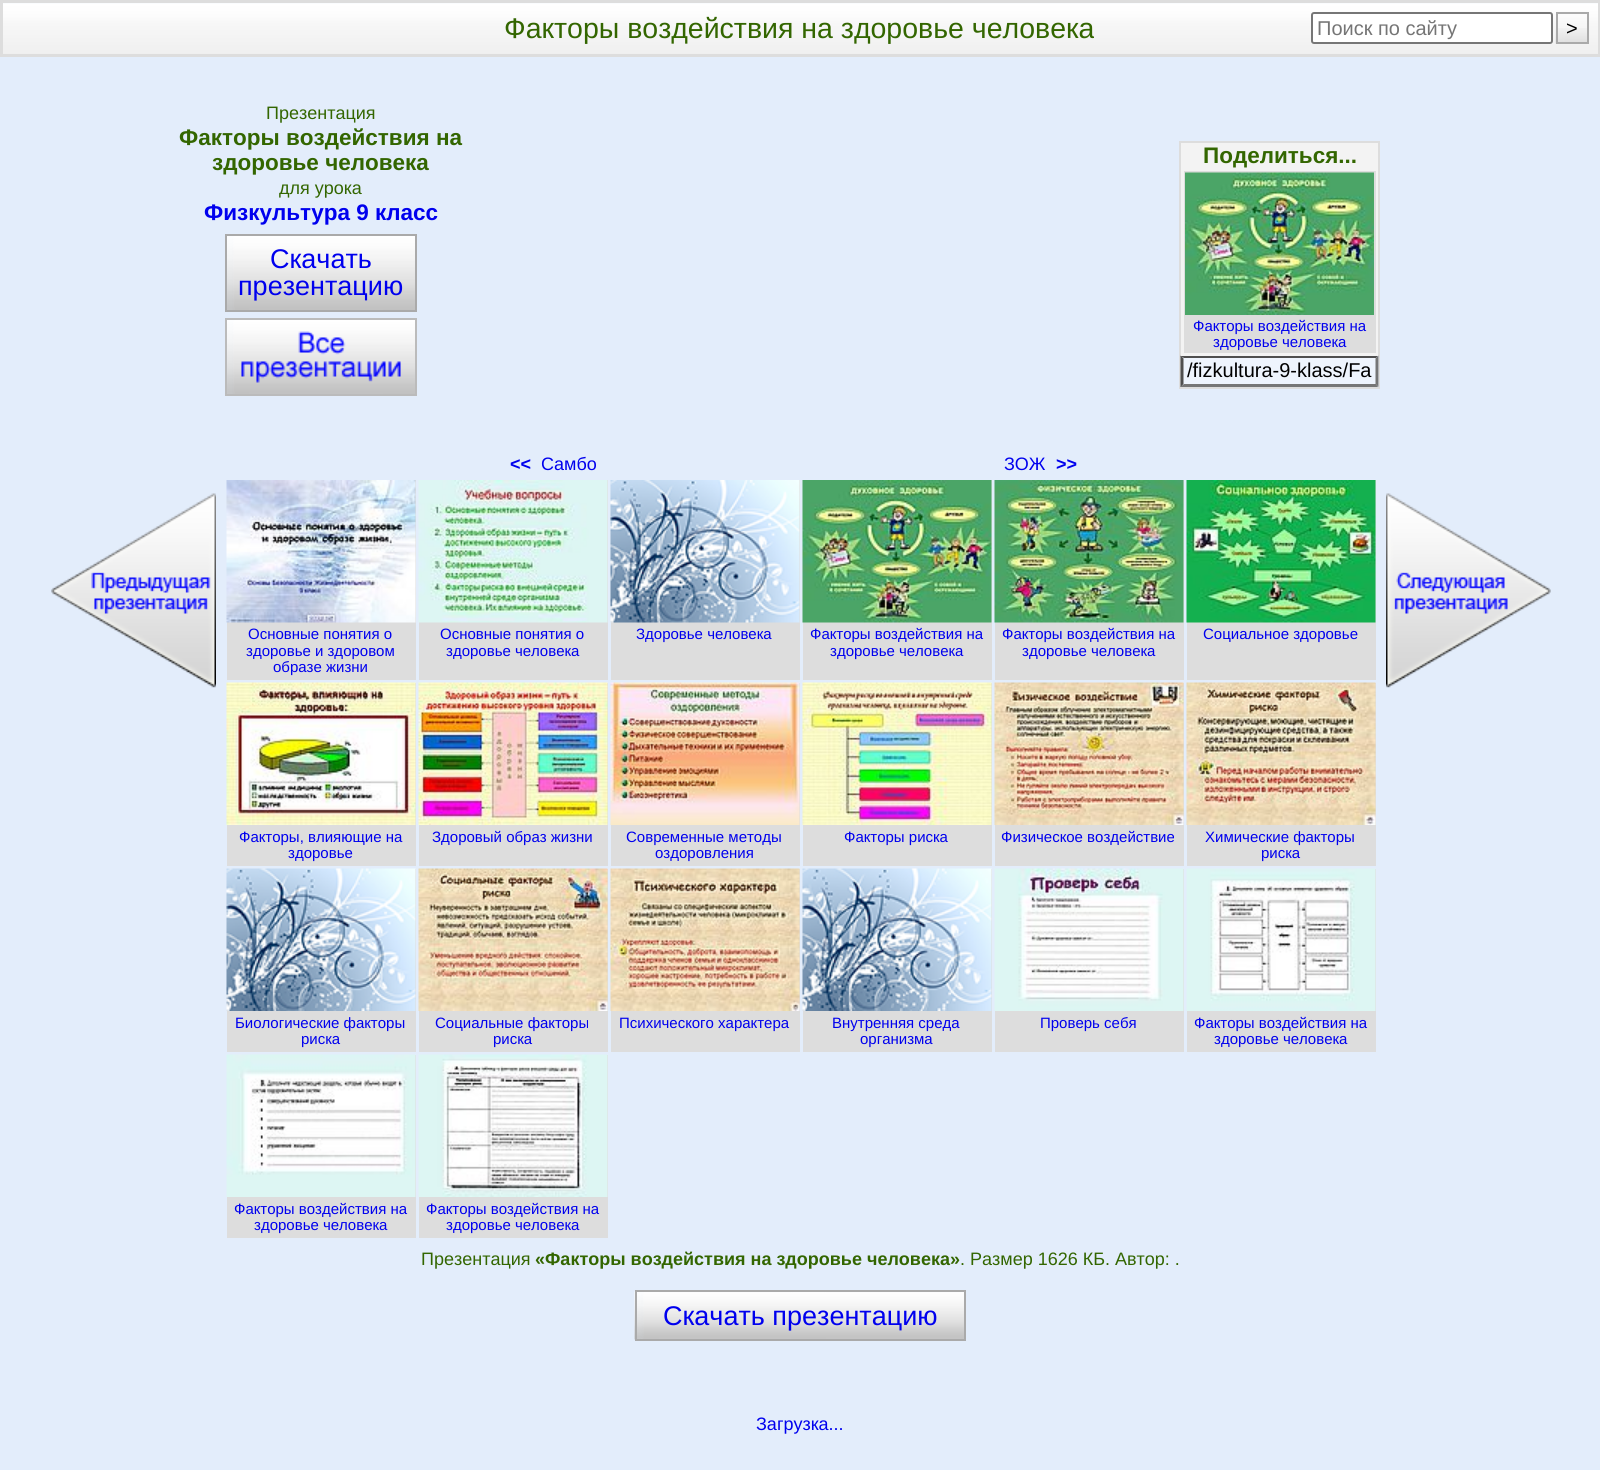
#include <cairo/cairo.h>
#include <math.h>
#include <stddef.h>

typedef struct { double x, y; const char *s; } line_t;
static cairo_t *cr;

static void rgb(unsigned color)
{
	cairo_set_source_rgb(cr, (color >> 16) / 255.0, (color >> 8 & 255) / 255.0, (color & 255) / 255.0);
}

static void rrect(double x, double y, double w, double h, double r)
{
	cairo_new_sub_path(cr);
	cairo_arc(cr, x + w - r, y + h - r, r, 0, M_PI / 2);
	cairo_arc(cr, x + r, y + h - r, r, M_PI / 2, M_PI);
	cairo_arc(cr, x + r, y + r, r, M_PI, 1.5 * M_PI);
	cairo_arc(cr, x + w - r, y + r, r, 1.5 * M_PI, 2 * M_PI);
	cairo_close_path(cr);
}

static void image(const char *path, double x, double y, double w, double h)
{
	cairo_surface_t *image = cairo_image_surface_create_from_png(path);
	cairo_save(cr);
	cairo_set_source_surface(cr, image, x, y);
	cairo_rectangle(cr, x, y, w, h);
	cairo_fill(cr);
	cairo_restore(cr);
	cairo_surface_destroy(image);
}

int main(void) {
	cairo_surface_t *surface = cairo_image_surface_create(CAIRO_FORMAT_RGB24, 1600, 1470);
	cr = cairo_create(surface);
	cairo_font_options_t *options = cairo_font_options_create();
	cairo_font_options_set_hint_metrics(options, CAIRO_HINT_METRICS_OFF);
	cairo_font_options_set_hint_style(options, CAIRO_HINT_STYLE_NONE);
	cairo_set_font_options(cr, options);
	cairo_set_miter_limit(cr, 4);
	rgb(0xe3edfb);
	cairo_paint(cr);
	image("img/1.png", 3, 3, 1595, 51);
	cairo_rectangle(cr, 1.5, 1.5, 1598, 54);
	rgb(0xdddddd);
	cairo_set_line_width(cr, 3);
	cairo_stroke(cr);
	rgb(0xffffff);
	rrect(1312, 13, 240, 30, 2);
	cairo_fill_preserve(cr);
	rgb(0x767676);
	cairo_set_line_width(cr, 2);
	cairo_stroke(cr);
	image("img/2.png", 1555, 28, 32, 16);
	cairo_rectangle(cr, 1557, 13, 31, 30);
	rgb(0xaaaaaa);
	cairo_stroke(cr);
	image("img/3.png", 227, 320, 188, 74);
	cairo_rectangle(cr, 226, 319, 190, 76);
	rgb(0xbbbbbb);
	cairo_stroke(cr);
	image("img/4.png", 227, 236, 188, 74);
	cairo_rectangle(cr, 226, 235, 190, 76);
	rgb(0xaaaaaa);
	cairo_stroke(cr);
	rgb(0xf3f3f3);
	cairo_rectangle(cr, 1181, 143, 197, 213);
	cairo_fill(cr);
	cairo_rectangle(cr, 1180, 142, 199, 246);
	rgb(0xdddddd);
	cairo_stroke(cr);
	cairo_rectangle(cr, 1184, 171, 192, 182);
	cairo_fill(cr);
	image("img/5.png", 1185, 172, 189, 143);
	rgb(0xeef4fd);
	cairo_rectangle(cr, 1181, 356, 198, 31);
	cairo_fill(cr);
	rgb(0x4f4f4f);
	cairo_new_path(cr);
	cairo_move_to(cr, 1180, 356);
	cairo_line_to(cr, 1378, 356);
	cairo_line_to(cr, 1376, 358);
	cairo_line_to(cr, 1184, 358);
	cairo_close_path(cr);
	cairo_fill(cr);
	rgb(0x767676);
	cairo_new_path(cr);
	cairo_move_to(cr, 1378.5, 355.5);
	cairo_line_to(cr, 1378.5, 387);
	cairo_line_to(cr, 1375.5, 384);
	cairo_line_to(cr, 1375.5, 358.5);
	cairo_close_path(cr);
	cairo_fill(cr);
	cairo_new_path(cr);
	cairo_move_to(cr, 1378, 387);
	cairo_line_to(cr, 1180, 387);
	cairo_line_to(cr, 1184, 384);
	cairo_line_to(cr, 1376, 384);
	cairo_close_path(cr);
	cairo_fill(cr);
	rgb(0x4f4f4f);
	cairo_new_path(cr);
	cairo_move_to(cr, 1180.5, 387);
	cairo_line_to(cr, 1180.5, 355.5);
	cairo_line_to(cr, 1183.5, 358.5);
	cairo_line_to(cr, 1183.5, 384);
	cairo_close_path(cr);
	cairo_fill(cr);
	image("img/6.png", 51, 493, 165, 195);
	image("img/7.png", 1386, 493, 165, 195);
	rgb(0xdddddd);
	cairo_rectangle(cr, 227, 480, 189, 200);
	cairo_fill(cr);
	image("img/8.png", 226, 480, 190, 143);
	cairo_rectangle(cr, 419, 480, 189, 200);
	cairo_fill(cr);
	image("img/9.png", 418, 480, 190, 143);
	cairo_rectangle(cr, 611, 480, 189, 200);
	cairo_fill(cr);
	image("img/10.png", 610, 480, 190, 143);
	cairo_rectangle(cr, 803, 480, 189, 200);
	cairo_fill(cr);
	image("img/11.png", 802, 480, 190, 143);
	cairo_rectangle(cr, 995, 480, 189, 200);
	cairo_fill(cr);
	image("img/12.png", 994, 480, 190, 143);
	cairo_rectangle(cr, 1187, 480, 189, 200);
	cairo_fill(cr);
	image("img/13.png", 1186, 480, 190, 143);
	cairo_rectangle(cr, 227, 683, 189, 183);
	cairo_fill(cr);
	image("img/14.png", 226, 682, 190, 143);
	cairo_rectangle(cr, 419, 683, 189, 183);
	cairo_fill(cr);
	image("img/15.png", 418, 682, 190, 143);
	cairo_rectangle(cr, 611, 683, 189, 183);
	cairo_fill(cr);
	image("img/16.png", 610, 682, 190, 143);
	cairo_rectangle(cr, 803, 683, 189, 183);
	cairo_fill(cr);
	image("img/17.png", 802, 682, 190, 143);
	cairo_rectangle(cr, 995, 683, 189, 183);
	cairo_fill(cr);
	image("img/18.png", 994, 682, 190, 143);
	cairo_rectangle(cr, 1187, 683, 189, 183);
	cairo_fill(cr);
	image("img/19.png", 1186, 682, 190, 143);
	cairo_rectangle(cr, 227, 869, 189, 183);
	cairo_fill(cr);
	image("img/20.png", 226, 868, 190, 143);
	cairo_rectangle(cr, 419, 869, 189, 183);
	cairo_fill(cr);
	image("img/21.png", 418, 868, 190, 143);
	cairo_rectangle(cr, 611, 869, 189, 183);
	cairo_fill(cr);
	image("img/22.png", 610, 868, 190, 143);
	cairo_rectangle(cr, 803, 869, 189, 183);
	cairo_fill(cr);
	image("img/20.png", 802, 868, 190, 143);
	cairo_rectangle(cr, 995, 869, 189, 183);
	cairo_fill(cr);
	image("img/23.png", 994, 868, 190, 143);
	cairo_rectangle(cr, 1187, 869, 189, 183);
	cairo_fill(cr);
	image("img/24.png", 1186, 868, 190, 143);
	cairo_rectangle(cr, 227, 1055, 189, 183);
	cairo_fill(cr);
	image("img/25.png", 226, 1054, 190, 143);
	cairo_rectangle(cr, 419, 1055, 189, 183);
	cairo_fill(cr);
	image("img/26.png", 418, 1054, 190, 143);
	image("img/27.png", 634, 1291, 330, 49);
	cairo_rectangle(cr, 636, 1291, 329, 49);
	rgb(0xaaaaaa);
	cairo_stroke(cr);
	cairo_select_font_face(cr, "Liberation Sans", CAIRO_FONT_SLANT_NORMAL, CAIRO_FONT_WEIGHT_NORMAL);
	cairo_set_font_size(cr, 28.5);
	rgb(0x336600);
	cairo_move_to(cr, 504, 38);
	cairo_show_text(cr, "Факторы воздействия на здоровье человека");
	cairo_set_font_size(cr, 20);
	rgb(0x757575);
	cairo_move_to(cr, 1317, 35);
	cairo_show_text(cr, "Поиск по сайту");
	rgb(0x000000);
	cairo_move_to(cr, 1566, 35);
	cairo_show_text(cr, ">");
	cairo_set_font_size(cr, 18);
	rgb(0x336600);
	cairo_move_to(cr, 266, 119);
	cairo_show_text(cr, "Презентация");
	cairo_select_font_face(cr, "Liberation Sans", CAIRO_FONT_SLANT_NORMAL, CAIRO_FONT_WEIGHT_BOLD);
	cairo_set_font_size(cr, 22.5);
	cairo_move_to(cr, 179, 145);
	cairo_show_text(cr, "Факторы воздействия на");
	cairo_move_to(cr, 212, 170);
	cairo_show_text(cr, "здоровье человека");
	cairo_select_font_face(cr, "Liberation Sans", CAIRO_FONT_SLANT_NORMAL, CAIRO_FONT_WEIGHT_NORMAL);
	cairo_set_font_size(cr, 18);
	cairo_move_to(cr, 279, 194);
	cairo_show_text(cr, "для урока");
	cairo_select_font_face(cr, "Liberation Sans", CAIRO_FONT_SLANT_NORMAL, CAIRO_FONT_WEIGHT_BOLD);
	cairo_set_font_size(cr, 22.5);
	rgb(0x0000ee);
	cairo_move_to(cr, 204, 220);
	cairo_show_text(cr, "Физкультура 9 класс");
	cairo_select_font_face(cr, "Liberation Sans", CAIRO_FONT_SLANT_NORMAL, CAIRO_FONT_WEIGHT_NORMAL);
	cairo_set_font_size(cr, 27);
	cairo_move_to(cr, 270, 268);
	cairo_show_text(cr, "Скачать");
	cairo_move_to(cr, 238, 295);
	cairo_show_text(cr, "презентацию");
	cairo_select_font_face(cr, "Liberation Sans", CAIRO_FONT_SLANT_NORMAL, CAIRO_FONT_WEIGHT_BOLD);
	cairo_set_font_size(cr, 22.5);
	rgb(0x336600);
	cairo_move_to(cr, 1203, 163);
	cairo_show_text(cr, "Поделиться...");
	cairo_select_font_face(cr, "Liberation Sans", CAIRO_FONT_SLANT_NORMAL, CAIRO_FONT_WEIGHT_NORMAL);
	cairo_set_font_size(cr, 15);
	rgb(0x0000ee);
	cairo_move_to(cr, 1193, 331);
	cairo_show_text(cr, "Факторы воздействия на");
	cairo_move_to(cr, 1213, 347);
	cairo_show_text(cr, "здоровье человека");
	cairo_set_font_size(cr, 20);
	rgb(0x000000);
	cairo_move_to(cr, 1187, 377);
	cairo_show_text(cr, "/fizkultura-9-klass/Fa");
	cairo_select_font_face(cr, "Liberation Sans", CAIRO_FONT_SLANT_NORMAL, CAIRO_FONT_WEIGHT_BOLD);
	cairo_set_font_size(cr, 18);
	rgb(0x0000ee);
	cairo_move_to(cr, 510, 470);
	cairo_show_text(cr, "<<");
	cairo_select_font_face(cr, "Liberation Sans", CAIRO_FONT_SLANT_NORMAL, CAIRO_FONT_WEIGHT_NORMAL);
	cairo_move_to(cr, 541, 470);
	cairo_show_text(cr, "Самбо");
	cairo_move_to(cr, 1004, 470);
	cairo_show_text(cr, "ЗОЖ");
	cairo_select_font_face(cr, "Liberation Sans", CAIRO_FONT_SLANT_NORMAL, CAIRO_FONT_WEIGHT_BOLD);
	cairo_move_to(cr, 1056, 470);
	cairo_show_text(cr, ">>");
	cairo_select_font_face(cr, "Liberation Sans", CAIRO_FONT_SLANT_NORMAL, CAIRO_FONT_WEIGHT_NORMAL);
	cairo_set_font_size(cr, 15);
	{
		static const line_t items[] = {
			{248, 639, "Основные понятия о"},
			{246, 656, "здоровье и здоровом"},
			{273, 672, "образе жизни"},
			{440, 639, "Основные понятия о"},
			{446, 656, "здоровье человека"},
			{636, 639, "Здоровье человека"},
			{810, 639, "Факторы воздействия на"},
			{830, 656, "здоровье человека"},
			{1002, 639, "Факторы воздействия на"},
			{1022, 656, "здоровье человека"},
			{1203, 639, "Социальное здоровье"},
			{239, 842, "Факторы, влияющие на"},
			{288, 858, "здоровье"},
			{432, 842, "Здоровый образ жизни"},
			{626, 842, "Современные методы"},
			{655, 858, "оздоровления"},
			{844, 842, "Факторы риска"},
			{1001, 842, "Физическое воздействие"},
			{1205, 842, "Химические факторы"},
			{1261, 858, "риска"},
			{235, 1028, "Биологические факторы"},
			{301, 1044, "риска"},
			{435, 1028, "Социальные факторы"},
			{493, 1044, "риска"},
			{619, 1028, "Психического характера"},
			{832, 1028, "Внутренняя среда"},
			{860, 1044, "организма"},
			{1040, 1028, "Проверь себя"},
			{1194, 1028, "Факторы воздействия на"},
			{1214, 1044, "здоровье человека"},
			{234, 1214, "Факторы воздействия на"},
			{254, 1230, "здоровье человека"},
			{426, 1214, "Факторы воздействия на"},
			{446, 1230, "здоровье человека"},
		};
		for (size_t i = 0; i < sizeof items / sizeof *items; i++) {
			cairo_move_to(cr, items[i].x, items[i].y);
			cairo_show_text(cr, items[i].s);
		}
	}
	cairo_set_font_size(cr, 18);
	rgb(0x336600);
	cairo_move_to(cr, 421, 1265);
	cairo_show_text(cr, "Презентация");
	cairo_select_font_face(cr, "Liberation Sans", CAIRO_FONT_SLANT_NORMAL, CAIRO_FONT_WEIGHT_BOLD);
	cairo_move_to(cr, 535, 1265);
	cairo_show_text(cr, "«Факторы воздействия на здоровье человека»");
	cairo_select_font_face(cr, "Liberation Sans", CAIRO_FONT_SLANT_NORMAL, CAIRO_FONT_WEIGHT_NORMAL);
	cairo_move_to(cr, 960, 1265);
	cairo_show_text(cr, ". Размер 1626 КБ. Автор: .");
	cairo_set_font_size(cr, 27);
	rgb(0x0000ee);
	cairo_move_to(cr, 663, 1325);
	cairo_show_text(cr, "Скачать презентацию");
	cairo_set_font_size(cr, 18);
	cairo_move_to(cr, 756, 1430);
	cairo_show_text(cr, "Загрузка...");
	cairo_surface_write_to_png(surface, "page.png");
	cairo_font_options_destroy(options);
	cairo_destroy(cr);
	cairo_surface_destroy(surface);
	return 0;
}
